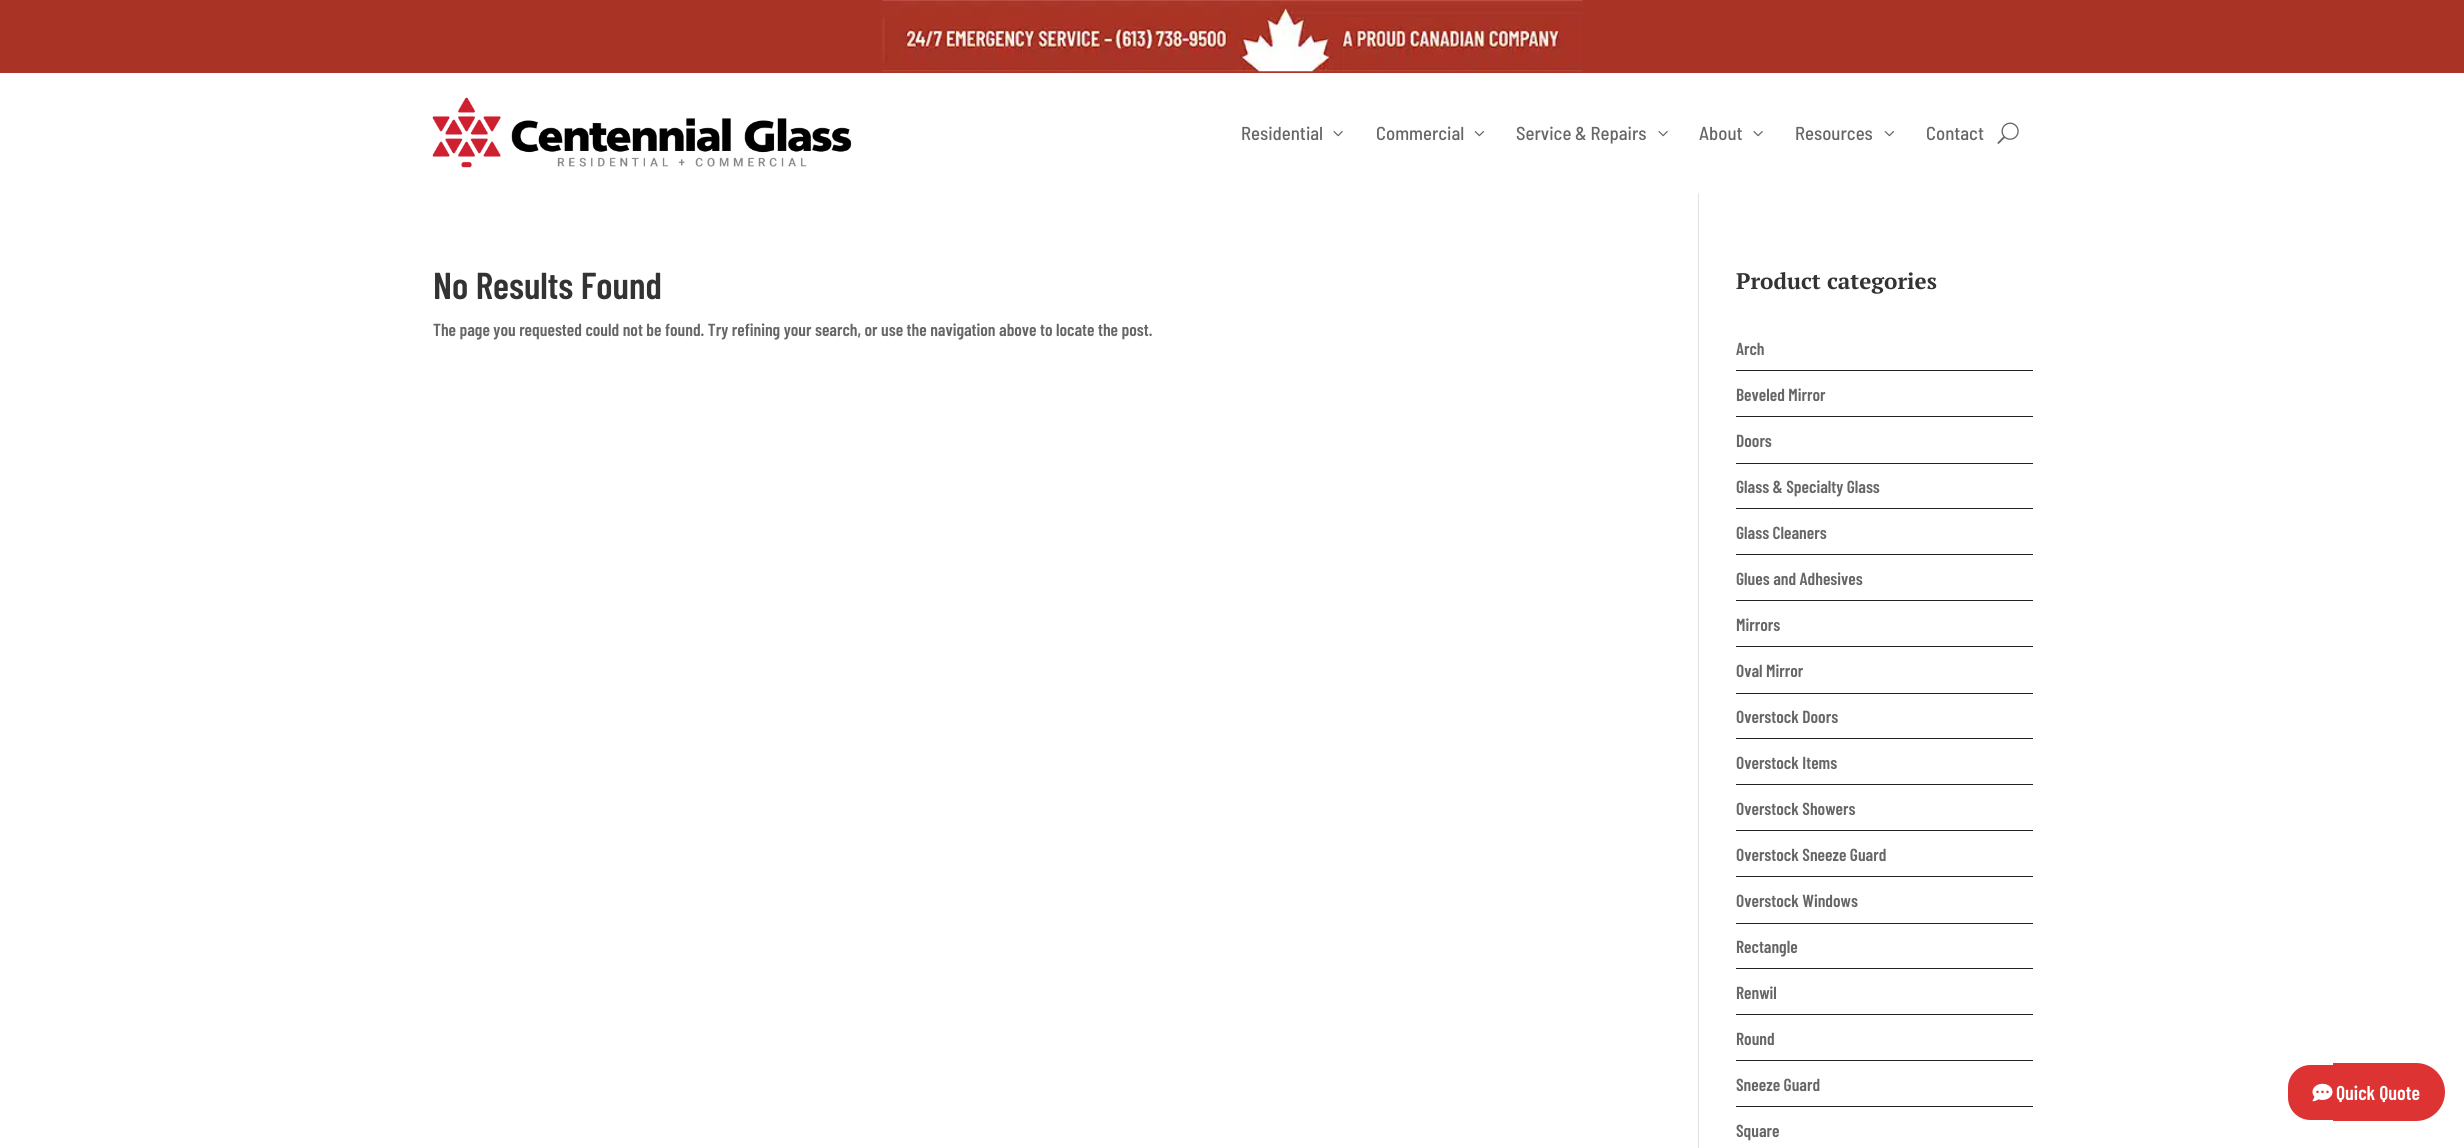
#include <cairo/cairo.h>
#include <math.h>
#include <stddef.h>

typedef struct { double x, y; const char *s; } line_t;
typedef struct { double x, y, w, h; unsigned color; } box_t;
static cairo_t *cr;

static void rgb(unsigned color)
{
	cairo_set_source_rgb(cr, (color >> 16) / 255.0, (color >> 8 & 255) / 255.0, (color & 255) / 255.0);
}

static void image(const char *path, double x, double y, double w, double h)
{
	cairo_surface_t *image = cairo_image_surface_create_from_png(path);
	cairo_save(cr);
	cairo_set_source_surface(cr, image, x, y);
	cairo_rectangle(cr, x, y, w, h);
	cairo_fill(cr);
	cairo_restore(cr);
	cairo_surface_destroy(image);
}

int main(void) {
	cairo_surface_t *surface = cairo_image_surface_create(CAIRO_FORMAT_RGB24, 2464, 1148);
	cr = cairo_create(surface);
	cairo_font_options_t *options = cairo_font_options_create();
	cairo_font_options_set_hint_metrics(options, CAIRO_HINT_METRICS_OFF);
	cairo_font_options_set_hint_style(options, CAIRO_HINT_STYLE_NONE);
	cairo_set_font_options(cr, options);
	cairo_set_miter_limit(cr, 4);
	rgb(0xffffff);
	cairo_paint(cr);
	rgb(0xa93426);
	cairo_rectangle(cr, 0, 0, 2464, 73);
	cairo_fill(cr);
	image("img/1.png", 882, 0, 701, 72);
	image("img/2.png", 432, 97, 420, 71);
	image("img/3.png", 1333, 131, 10, 6);
	image("img/4.png", 1474, 131, 10, 6);
	image("img/3.png", 1658, 131, 10, 6);
	image("img/3.png", 1753, 131, 10, 6);
	image("img/4.png", 1884, 131, 10, 6);
	image("img/5.png", 1997, 122, 22, 22);
	{
		static const box_t items[] = {
			{1698, 193, 1, 955, 0xe2e2e2},
			{1736, 370, 297, 1, 0x222222},
			{1736, 416, 297, 1, 0x222222},
			{1736, 463, 297, 1, 0x222222},
			{1736, 508, 297, 1, 0x222222},
			{1736, 554, 297, 1, 0x222222},
			{1736, 600, 297, 1, 0x222222},
			{1736, 646, 297, 1, 0x222222},
			{1736, 693, 297, 1, 0x222222},
			{1736, 738, 297, 1, 0x222222},
			{1736, 784, 297, 1, 0x222222},
			{1736, 830, 297, 1, 0x222222},
			{1736, 876, 297, 1, 0x222222},
			{1736, 923, 297, 1, 0x222222},
			{1736, 968, 297, 1, 0x222222},
			{1736, 1014, 297, 1, 0x222222},
			{1736, 1060, 297, 1, 0x222222},
			{1736, 1106, 297, 1, 0x222222},
		};
		for (size_t i = 0; i < sizeof items / sizeof *items; i++) {
			rgb(items[i].color);
			cairo_rectangle(cr, items[i].x, items[i].y, items[i].w, items[i].h);
			cairo_fill(cr);
		}
	}
	rgb(0xdd3333);
	cairo_new_path(cr);
	cairo_move_to(cr, 2310.5, 1065);
	cairo_line_to(cr, 2333, 1065);
	cairo_line_to(cr, 2333, 1120);
	cairo_line_to(cr, 2310.5, 1120);
	cairo_curve_to(cr, 2298, 1120, 2288, 1110, 2288, 1097.5);
	cairo_line_to(cr, 2288, 1087.5);
	cairo_curve_to(cr, 2288, 1075, 2298, 1065, 2310.5, 1065);
	cairo_close_path(cr);
	cairo_fill(cr);
	cairo_new_path(cr);
	cairo_move_to(cr, 2333, 1063);
	cairo_line_to(cr, 2416, 1063);
	cairo_curve_to(cr, 2432, 1063, 2445, 1076, 2445, 1092);
	cairo_curve_to(cr, 2445, 1108, 2432, 1121, 2416, 1121);
	cairo_line_to(cr, 2333, 1121);
	cairo_close_path(cr);
	cairo_fill(cr);
	image("img/6.png", 2312, 1083, 21, 19);
	cairo_select_font_face(cr, "Barlow Semi Condensed Medium", CAIRO_FONT_SLANT_NORMAL, CAIRO_FONT_WEIGHT_NORMAL);
	cairo_set_font_size(cr, 18.75);
	rgb(0x666666);
	{
		static const line_t items[] = {
			{1241, 140, "Residential"},
			{1376, 140, "Commercial"},
			{1516, 140, "Service & Repairs"},
			{1699, 140, "About"},
			{1795, 140, "Resources"},
			{1926, 140, "Contact"},
		};
		for (size_t i = 0; i < sizeof items / sizeof *items; i++) {
			cairo_move_to(cr, items[i].x, items[i].y);
			cairo_show_text(cr, items[i].s);
		}
	}
	cairo_select_font_face(cr, "Barlow Condensed SemiBold", CAIRO_FONT_SLANT_NORMAL, CAIRO_FONT_WEIGHT_NORMAL);
	cairo_set_font_size(cr, 37.5);
	rgb(0x333333);
	cairo_move_to(cr, 433, 299);
	cairo_show_text(cr, "No Results Found");
	cairo_set_font_size(cr, 17.5);
	rgb(0x666666);
	cairo_move_to(cr, 433, 336);
	cairo_show_text(cr, "The page you requested could not be found. Try refining your search, or use the navigation above to locate the post.");
	cairo_select_font_face(cr, "PT Serif", CAIRO_FONT_SLANT_NORMAL, CAIRO_FONT_WEIGHT_BOLD);
	cairo_set_font_size(cr, 22.5);
	rgb(0x333333);
	cairo_move_to(cr, 1736, 289);
	cairo_show_text(cr, "Product categories");
	cairo_select_font_face(cr, "Barlow Condensed SemiBold", CAIRO_FONT_SLANT_NORMAL, CAIRO_FONT_WEIGHT_NORMAL);
	cairo_set_font_size(cr, 17.5);
	rgb(0x666666);
	{
		static const line_t items[] = {
			{1736, 355, "Arch"},
			{1736, 401, "Beveled Mirror"},
			{1736, 447, "Doors"},
			{1736, 493, "Glass & Specialty Glass"},
			{1736, 539, "Glass Cleaners"},
			{1736, 585, "Glues and Adhesives"},
			{1736, 631, "Mirrors"},
			{1736, 677, "Oval Mirror"},
			{1736, 723, "Overstock Doors"},
			{1736, 769, "Overstock Items"},
			{1736, 815, "Overstock Showers"},
			{1736, 861, "Overstock Sneeze Guard"},
			{1736, 907, "Overstock Windows"},
			{1736, 953, "Rectangle"},
			{1736, 999, "Renwil"},
			{1736, 1045, "Round"},
			{1736, 1091, "Sneeze Guard"},
			{1736, 1137, "Square"},
		};
		for (size_t i = 0; i < sizeof items / sizeof *items; i++) {
			cairo_move_to(cr, items[i].x, items[i].y);
			cairo_show_text(cr, items[i].s);
		}
	}
	cairo_set_font_size(cr, 20);
	rgb(0xffffff);
	cairo_move_to(cr, 2336, 1100);
	cairo_show_text(cr, "Quick Quote");
	cairo_surface_write_to_png(surface, "page.png");
	cairo_font_options_destroy(options);
	cairo_destroy(cr);
	cairo_surface_destroy(surface);
	return 0;
}
